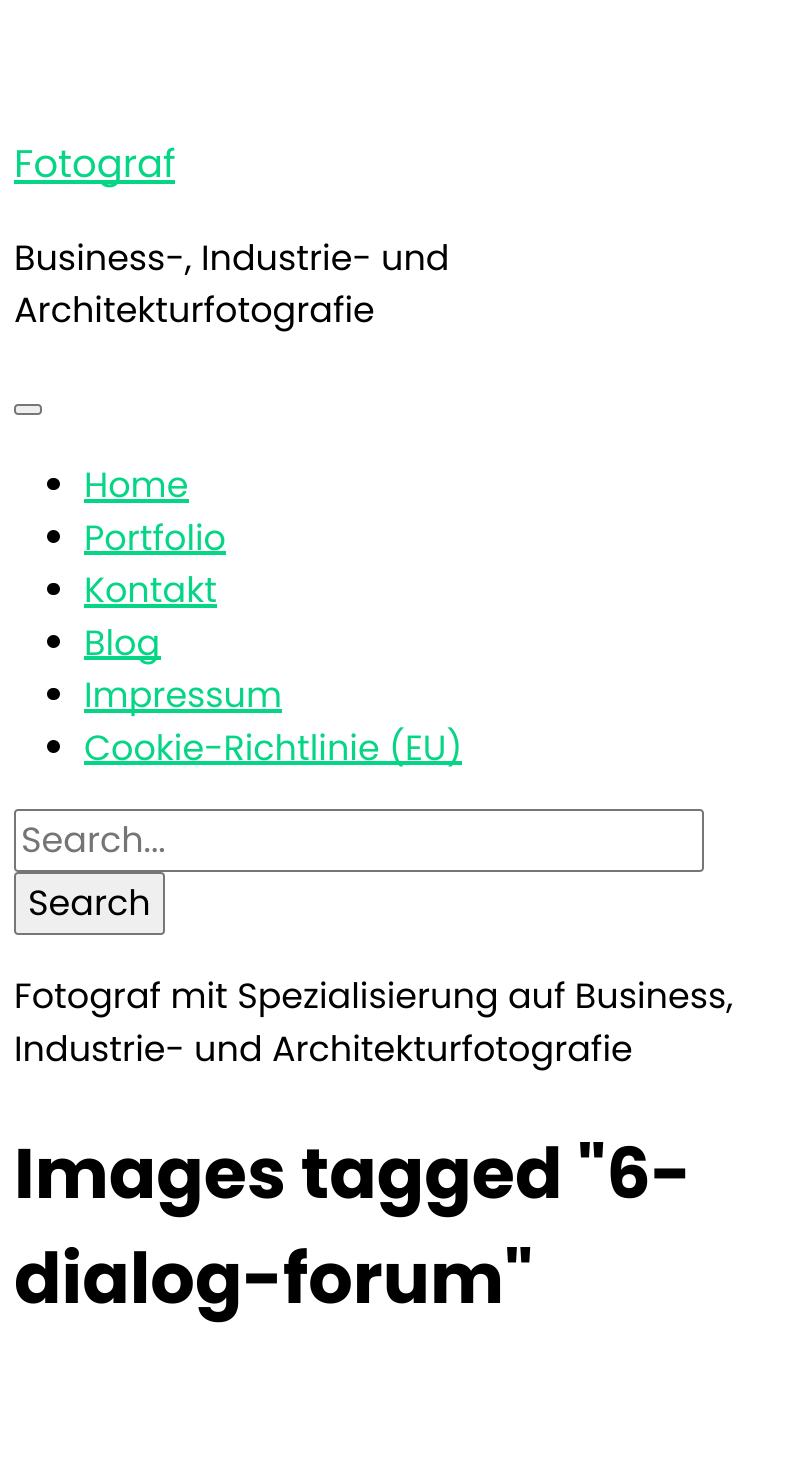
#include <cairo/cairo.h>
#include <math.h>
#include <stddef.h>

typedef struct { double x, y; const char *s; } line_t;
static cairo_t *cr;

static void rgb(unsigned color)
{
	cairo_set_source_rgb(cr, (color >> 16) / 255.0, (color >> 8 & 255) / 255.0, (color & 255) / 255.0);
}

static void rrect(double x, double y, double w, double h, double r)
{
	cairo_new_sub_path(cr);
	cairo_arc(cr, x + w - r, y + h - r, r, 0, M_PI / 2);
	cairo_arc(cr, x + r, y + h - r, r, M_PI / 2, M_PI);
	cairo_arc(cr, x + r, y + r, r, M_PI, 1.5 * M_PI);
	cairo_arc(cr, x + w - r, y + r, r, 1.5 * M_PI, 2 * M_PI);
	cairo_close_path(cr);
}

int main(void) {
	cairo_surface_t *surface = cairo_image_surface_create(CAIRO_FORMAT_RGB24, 789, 1471);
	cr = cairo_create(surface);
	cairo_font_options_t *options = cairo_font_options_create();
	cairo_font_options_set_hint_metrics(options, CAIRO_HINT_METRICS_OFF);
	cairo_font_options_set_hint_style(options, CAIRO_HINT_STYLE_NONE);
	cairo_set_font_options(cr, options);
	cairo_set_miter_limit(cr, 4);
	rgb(0xffffff);
	cairo_paint(cr);
	rgb(0x05d584);
	cairo_rectangle(cr, 14, 180, 161, 4);
	cairo_fill(cr);
	rgb(0xefefef);
	rrect(15, 405, 26, 9, 3);
	cairo_fill_preserve(cr);
	rgb(0x767676);
	cairo_stroke(cr);
	rgb(0x000000);
	rrect(47, 478, 13, 12, 6);
	cairo_fill(cr);
	rgb(0x05d584);
	cairo_rectangle(cr, 84, 499, 105, 4);
	cairo_fill(cr);
	rgb(0x000000);
	cairo_arc(cr, 53.5, 536.5, 6.5, 0, 2 * M_PI);
	cairo_fill(cr);
	rgb(0x05d584);
	cairo_rectangle(cr, 84, 551, 142, 4);
	cairo_fill(cr);
	rgb(0x000000);
	rrect(47, 583, 13, 12, 6);
	cairo_fill(cr);
	rgb(0x05d584);
	cairo_rectangle(cr, 84, 604, 133, 4);
	cairo_fill(cr);
	rgb(0x000000);
	cairo_arc(cr, 53.5, 641.5, 6.5, 0, 2 * M_PI);
	cairo_fill(cr);
	rgb(0x05d584);
	cairo_rectangle(cr, 84, 656, 77, 4);
	cairo_fill(cr);
	rgb(0x000000);
	rrect(47, 688, 13, 12, 6);
	cairo_fill(cr);
	rgb(0x05d584);
	cairo_rectangle(cr, 84, 709, 198, 4);
	cairo_fill(cr);
	rgb(0x000000);
	cairo_arc(cr, 53.5, 746.5, 6.5, 0, 2 * M_PI);
	cairo_fill(cr);
	rgb(0x05d584);
	cairo_rectangle(cr, 84, 761, 378, 4);
	cairo_fill(cr);
	rrect(15, 810, 688, 61, 3);
	rgb(0x767676);
	cairo_stroke(cr);
	rgb(0xefefef);
	rrect(15, 873, 149, 61, 3);
	cairo_fill_preserve(cr);
	rgb(0x767676);
	cairo_stroke(cr);
	cairo_select_font_face(cr, "Poppins", CAIRO_FONT_SLANT_NORMAL, CAIRO_FONT_WEIGHT_NORMAL);
	cairo_set_font_size(cr, 38.5);
	rgb(0x05d584);
	cairo_move_to(cr, 14, 177);
	cairo_show_text(cr, "Fotograf");
	cairo_set_font_size(cr, 35);
	rgb(0x000000);
	cairo_move_to(cr, 14, 270);
	cairo_show_text(cr, "Business-, Industrie- und");
	cairo_move_to(cr, 14, 322);
	cairo_show_text(cr, "Architekturfotografie");
	rgb(0x05d584);
	{
		static const line_t items[] = {
			{84, 497, "Home"},
			{84, 550, "Portfolio"},
			{84, 602, "Kontakt"},
			{84, 655, "Blog"},
			{84, 707, "Impressum"},
			{84, 760, "Cookie-Richtlinie (EU)"},
		};
		for (size_t i = 0; i < sizeof items / sizeof *items; i++) {
			cairo_move_to(cr, items[i].x, items[i].y);
			cairo_show_text(cr, items[i].s);
		}
	}
	rgb(0x757575);
	cairo_move_to(cr, 21, 852);
	cairo_show_text(cr, "Search...");
	rgb(0x000000);
	{
		static const line_t items[] = {
			{28, 915, "Search"},
			{14, 1008, "Fotograf mit Spezialisierung auf Business,"},
			{14, 1061, "Industrie- und Architekturfotografie"},
		};
		for (size_t i = 0; i < sizeof items / sizeof *items; i++) {
			cairo_move_to(cr, items[i].x, items[i].y);
			cairo_show_text(cr, items[i].s);
		}
	}
	cairo_select_font_face(cr, "Poppins", CAIRO_FONT_SLANT_NORMAL, CAIRO_FONT_WEIGHT_BOLD);
	cairo_set_font_size(cr, 70);
	cairo_move_to(cr, 14, 1198);
	cairo_show_text(cr, "Images tagged \"6-");
	cairo_move_to(cr, 14, 1303);
	cairo_show_text(cr, "dialog-forum\"");
	cairo_surface_write_to_png(surface, "page.png");
	cairo_font_options_destroy(options);
	cairo_destroy(cr);
	cairo_surface_destroy(surface);
	return 0;
}
